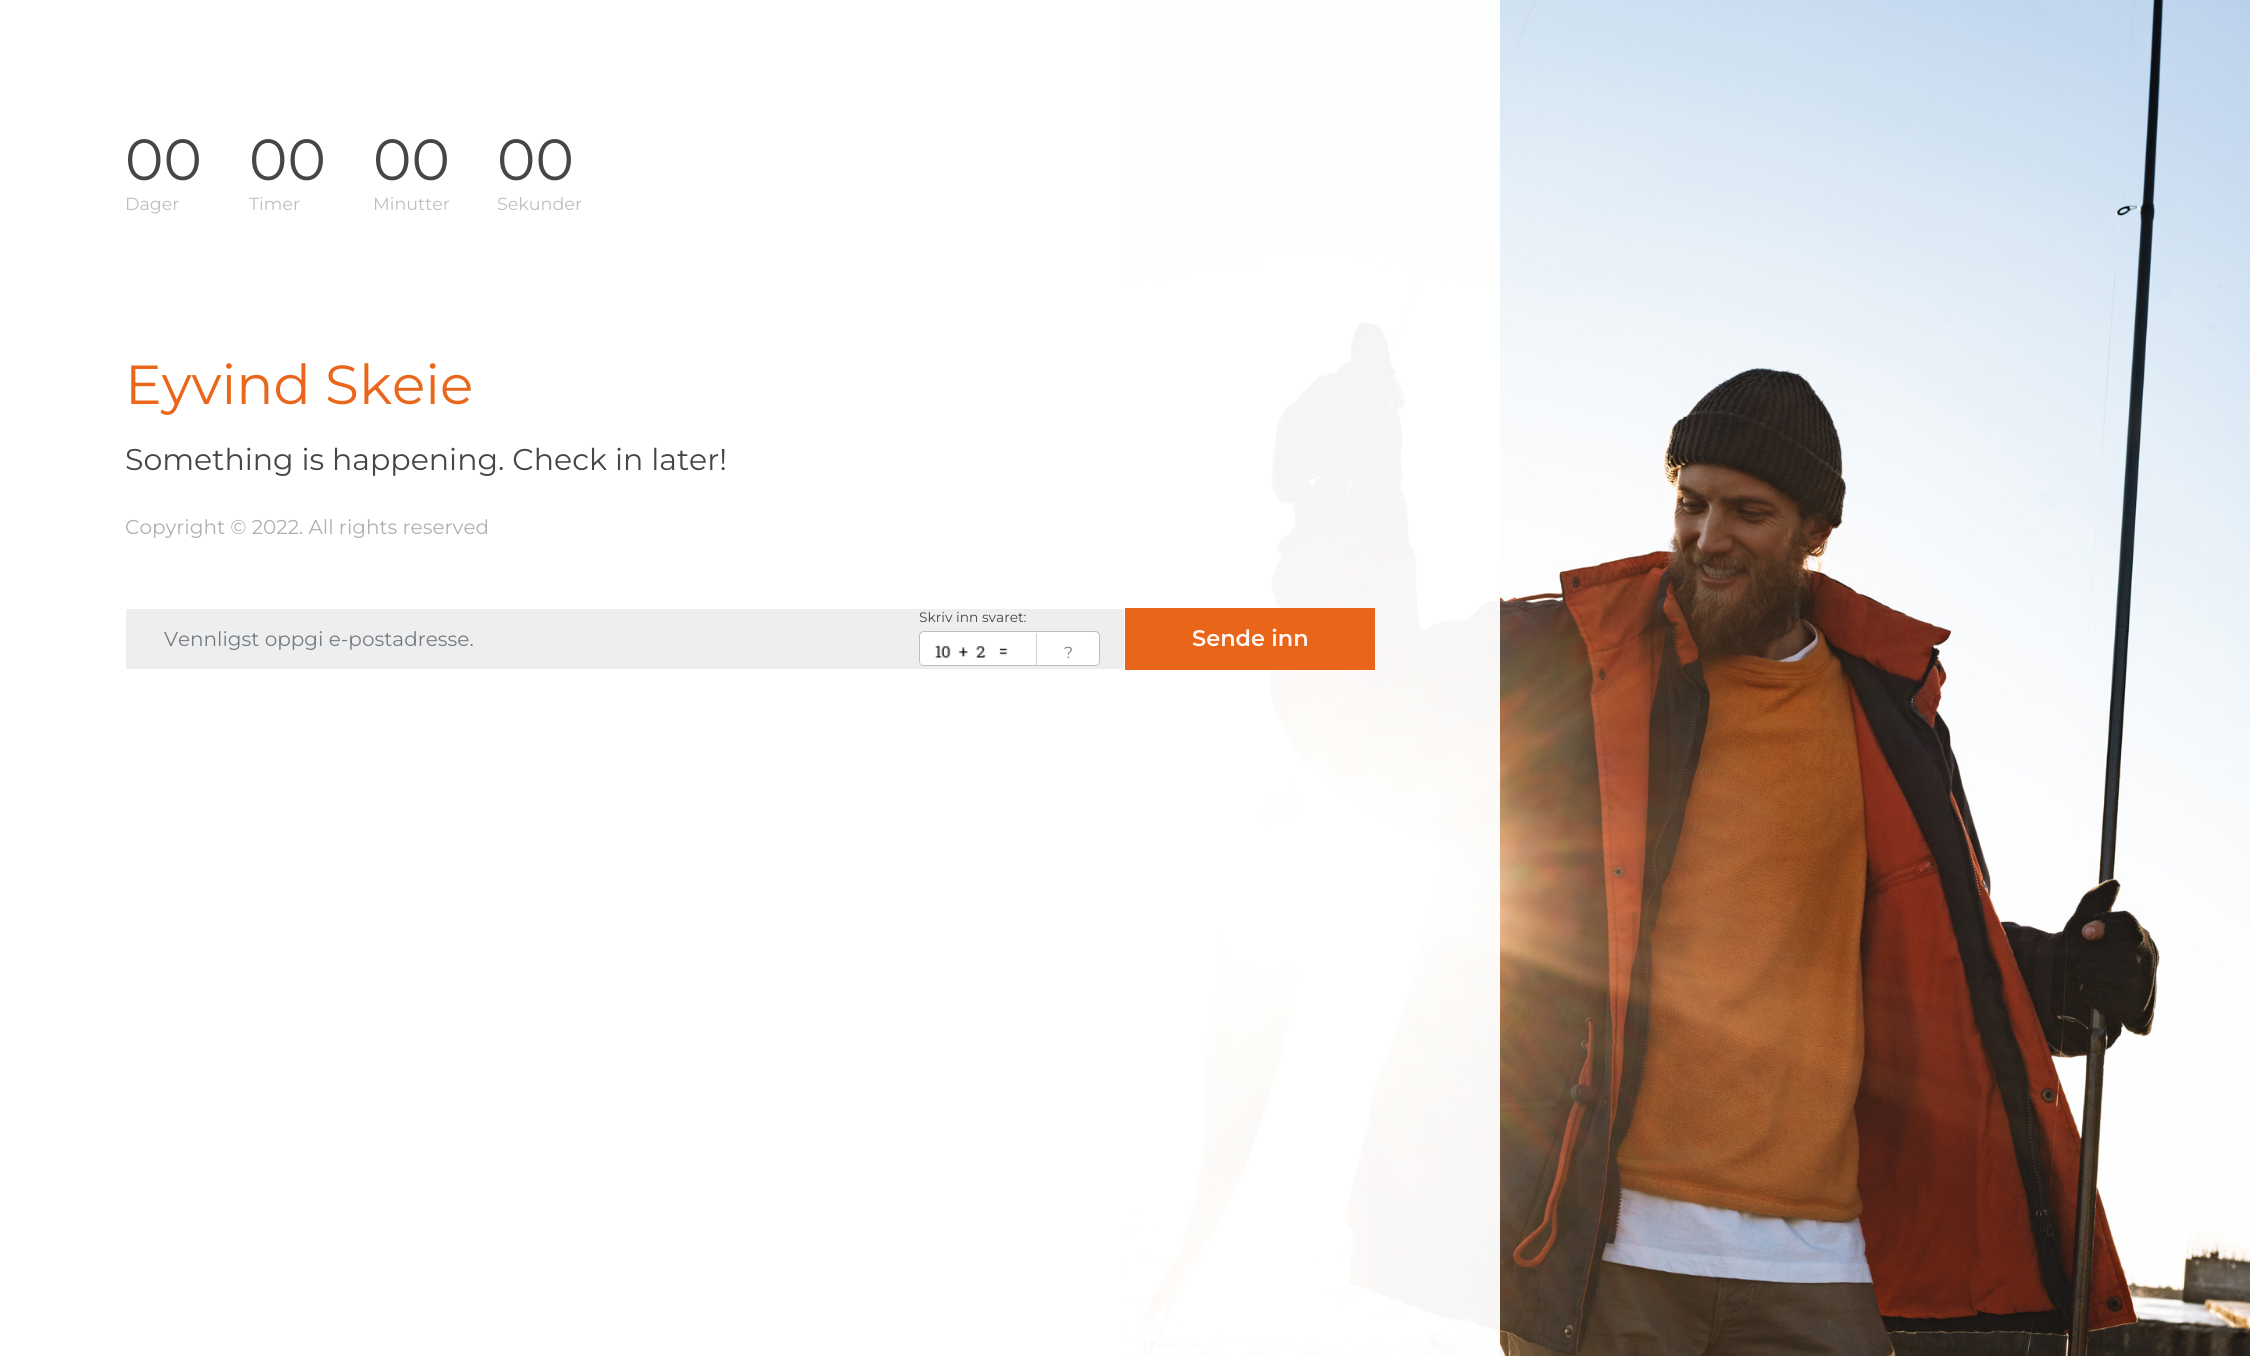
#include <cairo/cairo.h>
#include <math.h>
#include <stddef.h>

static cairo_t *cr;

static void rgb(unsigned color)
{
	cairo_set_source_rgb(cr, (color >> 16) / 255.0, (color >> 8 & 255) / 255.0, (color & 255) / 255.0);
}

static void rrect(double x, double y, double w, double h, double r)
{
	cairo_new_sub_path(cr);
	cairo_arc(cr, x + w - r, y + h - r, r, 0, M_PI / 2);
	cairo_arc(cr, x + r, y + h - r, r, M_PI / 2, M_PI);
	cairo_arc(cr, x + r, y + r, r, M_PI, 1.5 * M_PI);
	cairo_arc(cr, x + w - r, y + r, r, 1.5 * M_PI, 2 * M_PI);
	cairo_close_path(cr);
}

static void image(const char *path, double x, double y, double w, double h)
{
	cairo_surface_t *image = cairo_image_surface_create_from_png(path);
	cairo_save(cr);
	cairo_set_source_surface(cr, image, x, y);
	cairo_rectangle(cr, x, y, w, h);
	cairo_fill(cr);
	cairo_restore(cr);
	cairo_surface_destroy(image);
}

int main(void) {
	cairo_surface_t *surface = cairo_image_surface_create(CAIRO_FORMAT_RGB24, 2250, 1356);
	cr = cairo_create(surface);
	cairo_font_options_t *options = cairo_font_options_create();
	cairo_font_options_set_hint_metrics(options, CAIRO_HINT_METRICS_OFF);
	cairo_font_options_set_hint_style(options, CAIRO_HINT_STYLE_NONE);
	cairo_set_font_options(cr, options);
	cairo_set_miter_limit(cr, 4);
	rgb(0xffffff);
	cairo_paint(cr);
	image("img/1.png", 1125, 0, 1125, 1356);
	cairo_set_source_rgba(cr, 1, 1, 1, 0.95);
	cairo_rectangle(cr, 1125, 0, 375, 1356);
	cairo_fill(cr);
	rgb(0xeeeeee);
	cairo_rectangle(cr, 126, 609, 998, 60);
	cairo_fill(cr);
	rgb(0xffffff);
	rrect(919.5, 631.5, 180, 34, 4.5);
	cairo_fill_preserve(cr);
	rgb(0xbebebe);
	cairo_set_line_width(cr, 1);
	cairo_stroke(cr);
	image("img/2.png", 920, 645, 88, 20);
	rgb(0xffffff);
	cairo_new_path(cr);
	cairo_move_to(cr, 1036, 633);
	cairo_line_to(cr, 1095, 633);
	cairo_curve_to(cr, 1097, 633, 1099, 635, 1099, 637);
	cairo_line_to(cr, 1099, 661);
	cairo_curve_to(cr, 1099, 663, 1097, 665, 1095, 665);
	cairo_line_to(cr, 1036, 665);
	cairo_close_path(cr);
	cairo_fill(cr);
	rgb(0xcfcfcf);
	cairo_rectangle(cr, 1036, 633, 1, 32);
	cairo_fill(cr);
	cairo_set_source_rgba(cr, 0.91, 0.369, 0.059, 0.95);
	cairo_rectangle(cr, 1125, 608, 250, 62);
	cairo_fill(cr);
	cairo_select_font_face(cr, "Montserrat", CAIRO_FONT_SLANT_NORMAL, CAIRO_FONT_WEIGHT_NORMAL);
	cairo_set_font_size(cr, 58);
	rgb(0x464646);
	cairo_move_to(cr, 125, 180);
	cairo_show_text(cr, "00");
	cairo_set_font_size(cr, 17.5);
	rgb(0xbebebe);
	cairo_move_to(cr, 125, 210);
	cairo_show_text(cr, "Dager");
	cairo_set_font_size(cr, 58);
	rgb(0x464646);
	cairo_move_to(cr, 249, 180);
	cairo_show_text(cr, "00");
	cairo_set_font_size(cr, 17.5);
	rgb(0xbebebe);
	cairo_move_to(cr, 249, 210);
	cairo_show_text(cr, "Timer");
	cairo_set_font_size(cr, 58);
	rgb(0x464646);
	cairo_move_to(cr, 373, 180);
	cairo_show_text(cr, "00");
	cairo_set_font_size(cr, 17.5);
	rgb(0xbebebe);
	cairo_move_to(cr, 373, 210);
	cairo_show_text(cr, "Minutter");
	cairo_set_font_size(cr, 58);
	rgb(0x464646);
	cairo_move_to(cr, 497, 180);
	cairo_show_text(cr, "00");
	cairo_set_font_size(cr, 17.5);
	rgb(0xbebebe);
	cairo_move_to(cr, 497, 210);
	cairo_show_text(cr, "Sekunder");
	cairo_set_font_size(cr, 55);
	rgb(0xe9661b);
	cairo_move_to(cr, 125, 404);
	cairo_show_text(cr, "Eyvind Skeie");
	cairo_set_font_size(cr, 30);
	rgb(0x464646);
	cairo_move_to(cr, 125, 470);
	cairo_show_text(cr, "Something is happening. Check in later!");
	cairo_set_font_size(cr, 20);
	rgb(0xb0b0b0);
	cairo_move_to(cr, 125, 534);
	cairo_show_text(cr, "Copyright © 2022. All rights reserved");
	rgb(0x737c84);
	cairo_move_to(cr, 164, 646);
	cairo_show_text(cr, "Vennligst oppgi e-postadresse.");
	cairo_set_font_size(cr, 13.75);
	rgb(0x464646);
	cairo_move_to(cr, 919, 622);
	cairo_show_text(cr, "Skriv inn svaret:");
	cairo_set_font_size(cr, 16);
	rgb(0x7c7c7c);
	cairo_move_to(cr, 1064, 658);
	cairo_show_text(cr, "?");
	cairo_select_font_face(cr, "Montserrat SemiBold", CAIRO_FONT_SLANT_NORMAL, CAIRO_FONT_WEIGHT_NORMAL);
	cairo_set_font_size(cr, 22.5);
	rgb(0xfef7f4);
	cairo_move_to(cr, 1192, 646);
	cairo_show_text(cr, "Sende inn");
	cairo_surface_write_to_png(surface, "page.png");
	cairo_font_options_destroy(options);
	cairo_destroy(cr);
	cairo_surface_destroy(surface);
	return 0;
}
